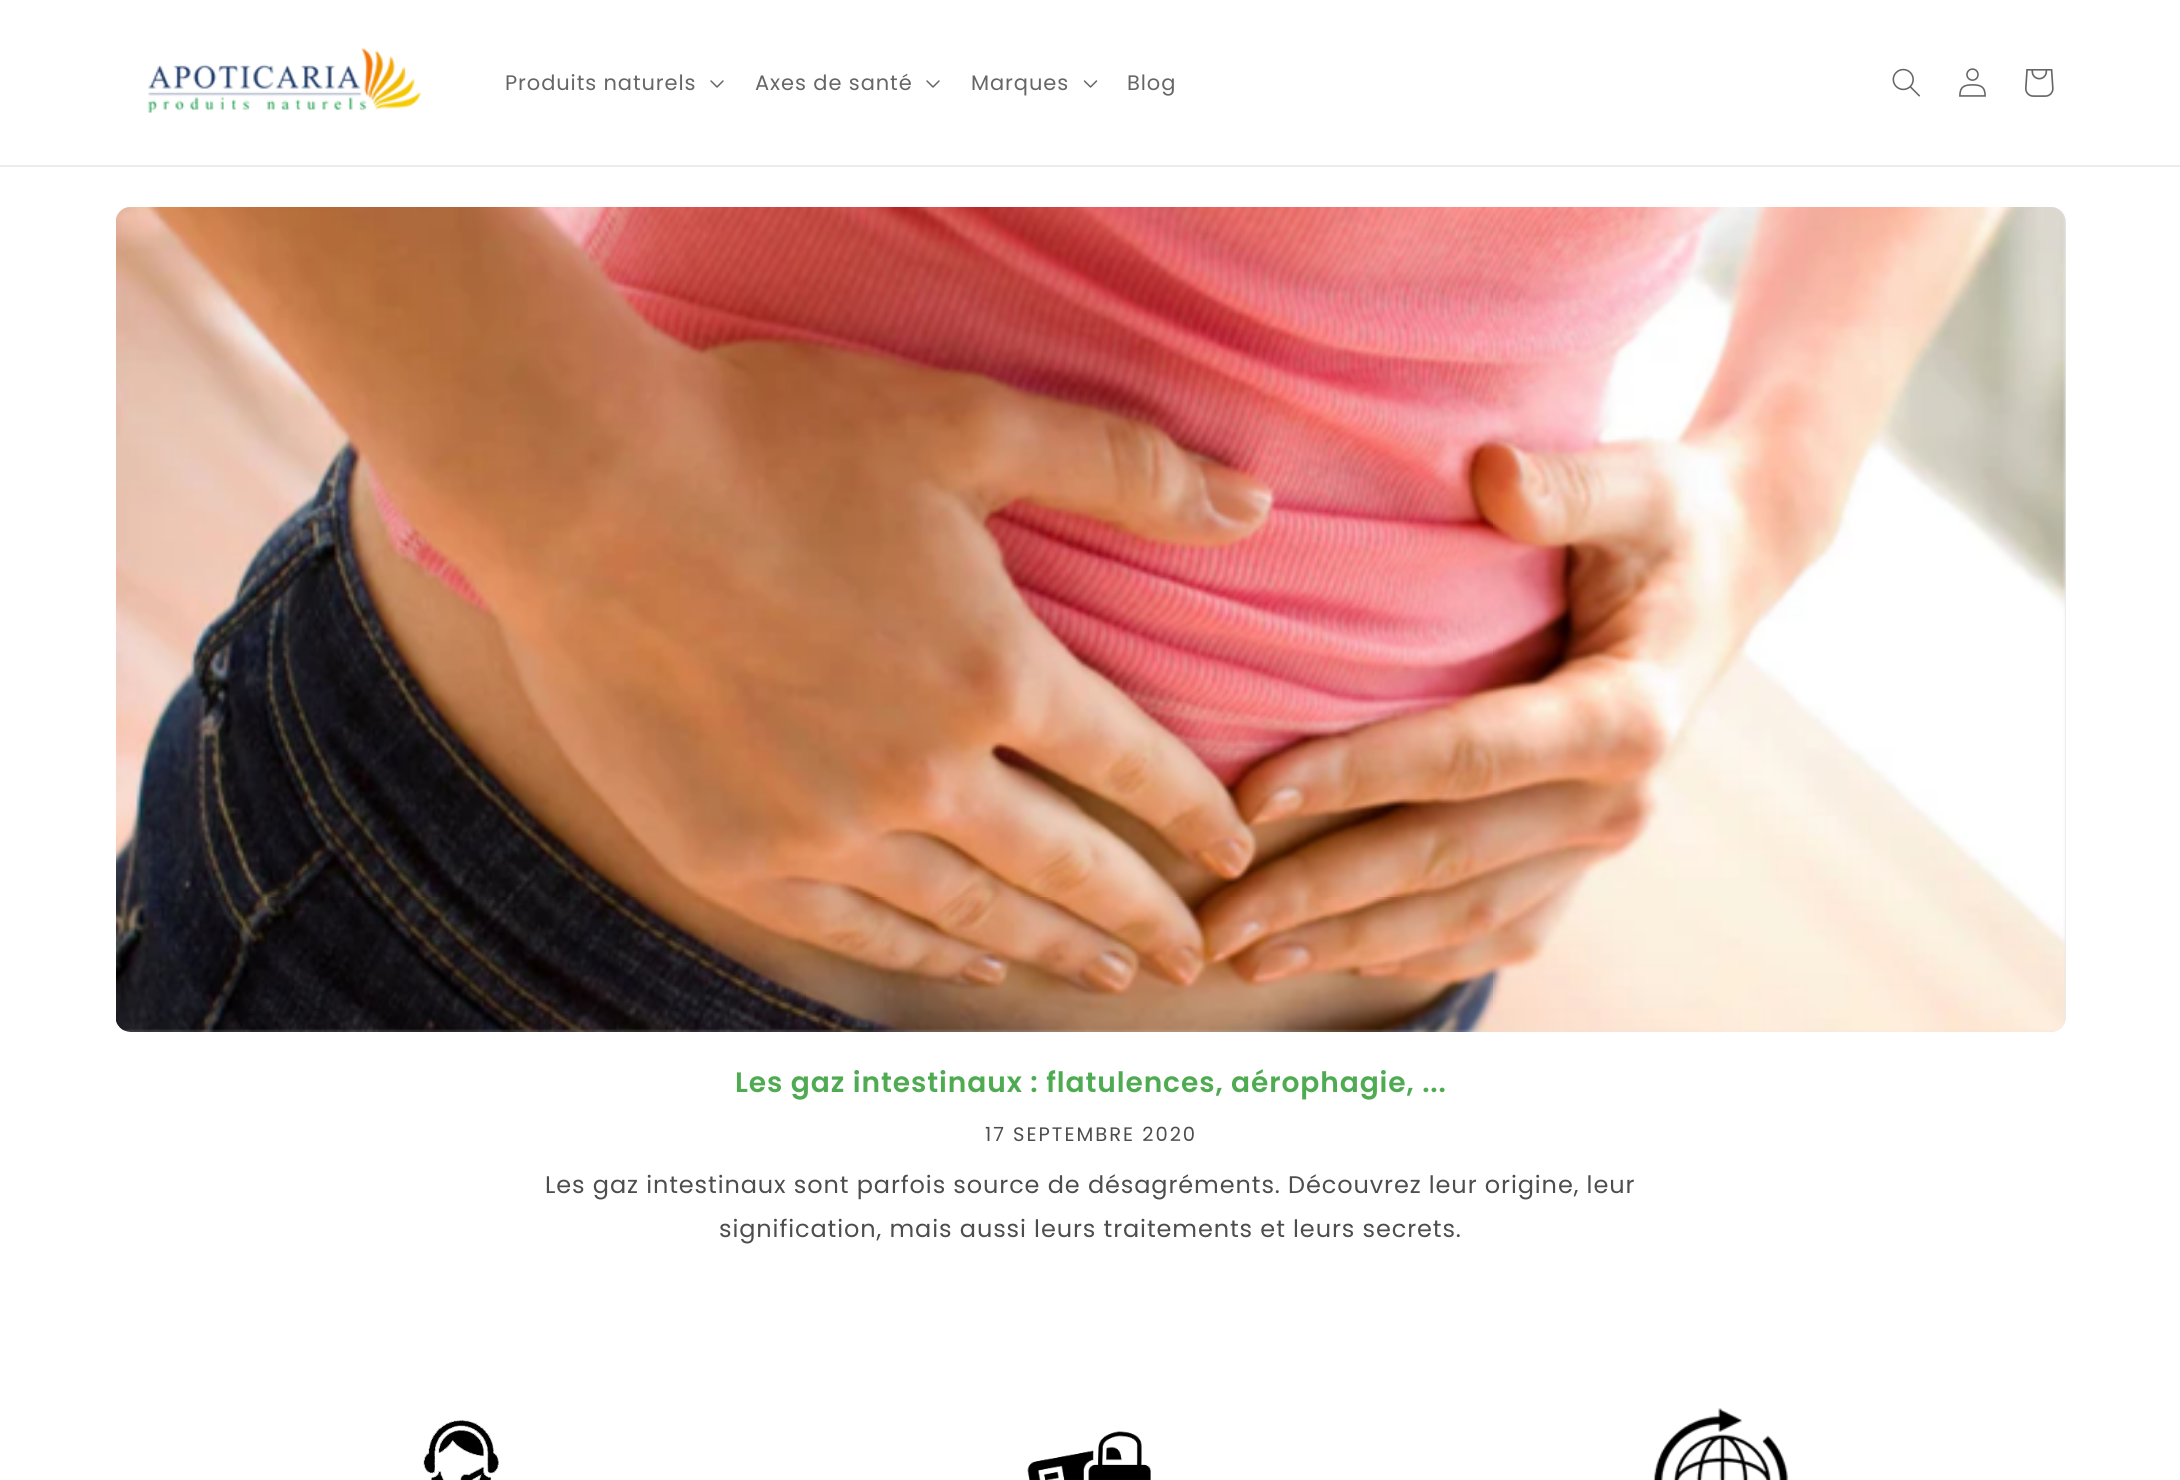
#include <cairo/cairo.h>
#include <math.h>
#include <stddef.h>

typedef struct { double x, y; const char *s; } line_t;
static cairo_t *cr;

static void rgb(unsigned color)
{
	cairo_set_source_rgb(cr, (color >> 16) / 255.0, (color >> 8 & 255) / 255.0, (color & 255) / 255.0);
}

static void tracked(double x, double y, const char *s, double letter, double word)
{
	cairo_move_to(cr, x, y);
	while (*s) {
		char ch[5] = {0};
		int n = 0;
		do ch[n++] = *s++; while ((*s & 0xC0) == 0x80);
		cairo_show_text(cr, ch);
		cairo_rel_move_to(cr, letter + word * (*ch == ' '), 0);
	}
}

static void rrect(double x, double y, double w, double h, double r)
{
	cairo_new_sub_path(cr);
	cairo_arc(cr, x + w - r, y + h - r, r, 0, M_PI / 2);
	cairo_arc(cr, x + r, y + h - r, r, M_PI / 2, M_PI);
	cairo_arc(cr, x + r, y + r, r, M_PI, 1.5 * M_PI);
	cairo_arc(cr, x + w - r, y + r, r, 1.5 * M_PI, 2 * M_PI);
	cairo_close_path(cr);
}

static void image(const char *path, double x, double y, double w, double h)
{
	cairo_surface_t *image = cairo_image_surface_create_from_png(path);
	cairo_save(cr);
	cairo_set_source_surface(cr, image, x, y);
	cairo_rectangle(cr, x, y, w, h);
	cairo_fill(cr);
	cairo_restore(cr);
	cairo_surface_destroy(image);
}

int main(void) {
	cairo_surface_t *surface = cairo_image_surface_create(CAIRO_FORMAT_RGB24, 2180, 1480);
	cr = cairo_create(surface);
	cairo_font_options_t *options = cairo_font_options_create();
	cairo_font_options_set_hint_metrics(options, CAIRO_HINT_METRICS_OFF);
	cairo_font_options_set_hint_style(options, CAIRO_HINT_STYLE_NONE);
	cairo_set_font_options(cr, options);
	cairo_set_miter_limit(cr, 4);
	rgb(0xffffff);
	cairo_paint(cr);
	rgb(0xececec);
	cairo_rectangle(cr, 0, 165, 2180, 2);
	cairo_fill(cr);
	image("img/1.png", 148, 47, 274, 66);
	image("img/2.png", 710, 80, 14, 8);
	image("img/2.png", 926, 80, 14, 8);
	image("img/3.png", 1083, 80, 15, 8);
	image("img/4.png", 1892, 68, 28, 29);
	image("img/5.png", 1959, 68, 27, 29);
	image("img/6.png", 2025, 69, 29, 28);
	rgb(0xe8e8e8);
	rrect(116, 207, 1950, 825, 15);
	cairo_fill(cr);
	image("img/7.png", 116, 207, 1950, 825);
	image("img/8.png", 423, 1420, 76, 60);
	image("img/9.png", 1027, 1431, 124, 49);
	image("img/10.png", 1653, 1408, 136, 72);
	cairo_select_font_face(cr, "Poppins", CAIRO_FONT_SLANT_NORMAL, CAIRO_FONT_WEIGHT_NORMAL);
	cairo_set_font_size(cr, 21);
	rgb(0x666666);
	{
		static const line_t items[] = {
			{505, 90, "Produits naturels"},
			{755, 90, "Axes de santé"},
			{971, 90, "Marques"},
			{1127, 90, "Blog"},
		};
		for (size_t i = 0; i < sizeof items / sizeof *items; i++) {
			tracked(items[i].x, items[i].y, items[i].s, 0.9, 0);
		}
	}
	cairo_select_font_face(cr, "Poppins SemiBold", CAIRO_FONT_SLANT_NORMAL, CAIRO_FONT_WEIGHT_NORMAL);
	cairo_set_font_size(cr, 28.1);
	rgb(0x4fab52);
	tracked(735, 1092, "Les gaz intestinaux : flatulences, aérophagie, ...", 0.9, 0);
	cairo_select_font_face(cr, "Poppins", CAIRO_FONT_SLANT_NORMAL, CAIRO_FONT_WEIGHT_NORMAL);
	cairo_set_font_size(cr, 19.5);
	rgb(0x4d4d4d);
	tracked(985, 1141, "17 SEPTEMBRE 2020", 2, 0);
	cairo_set_font_size(cr, 24);
	tracked(545, 1193, "Les gaz intestinaux sont parfois source de désagréments. Découvrez leur origine, leur", 0.9, 0);
	tracked(719, 1237, "signification, mais aussi leurs traitements et leurs secrets.", 0.9, 0);
	cairo_surface_write_to_png(surface, "page.png");
	cairo_font_options_destroy(options);
	cairo_destroy(cr);
	cairo_surface_destroy(surface);
	return 0;
}
